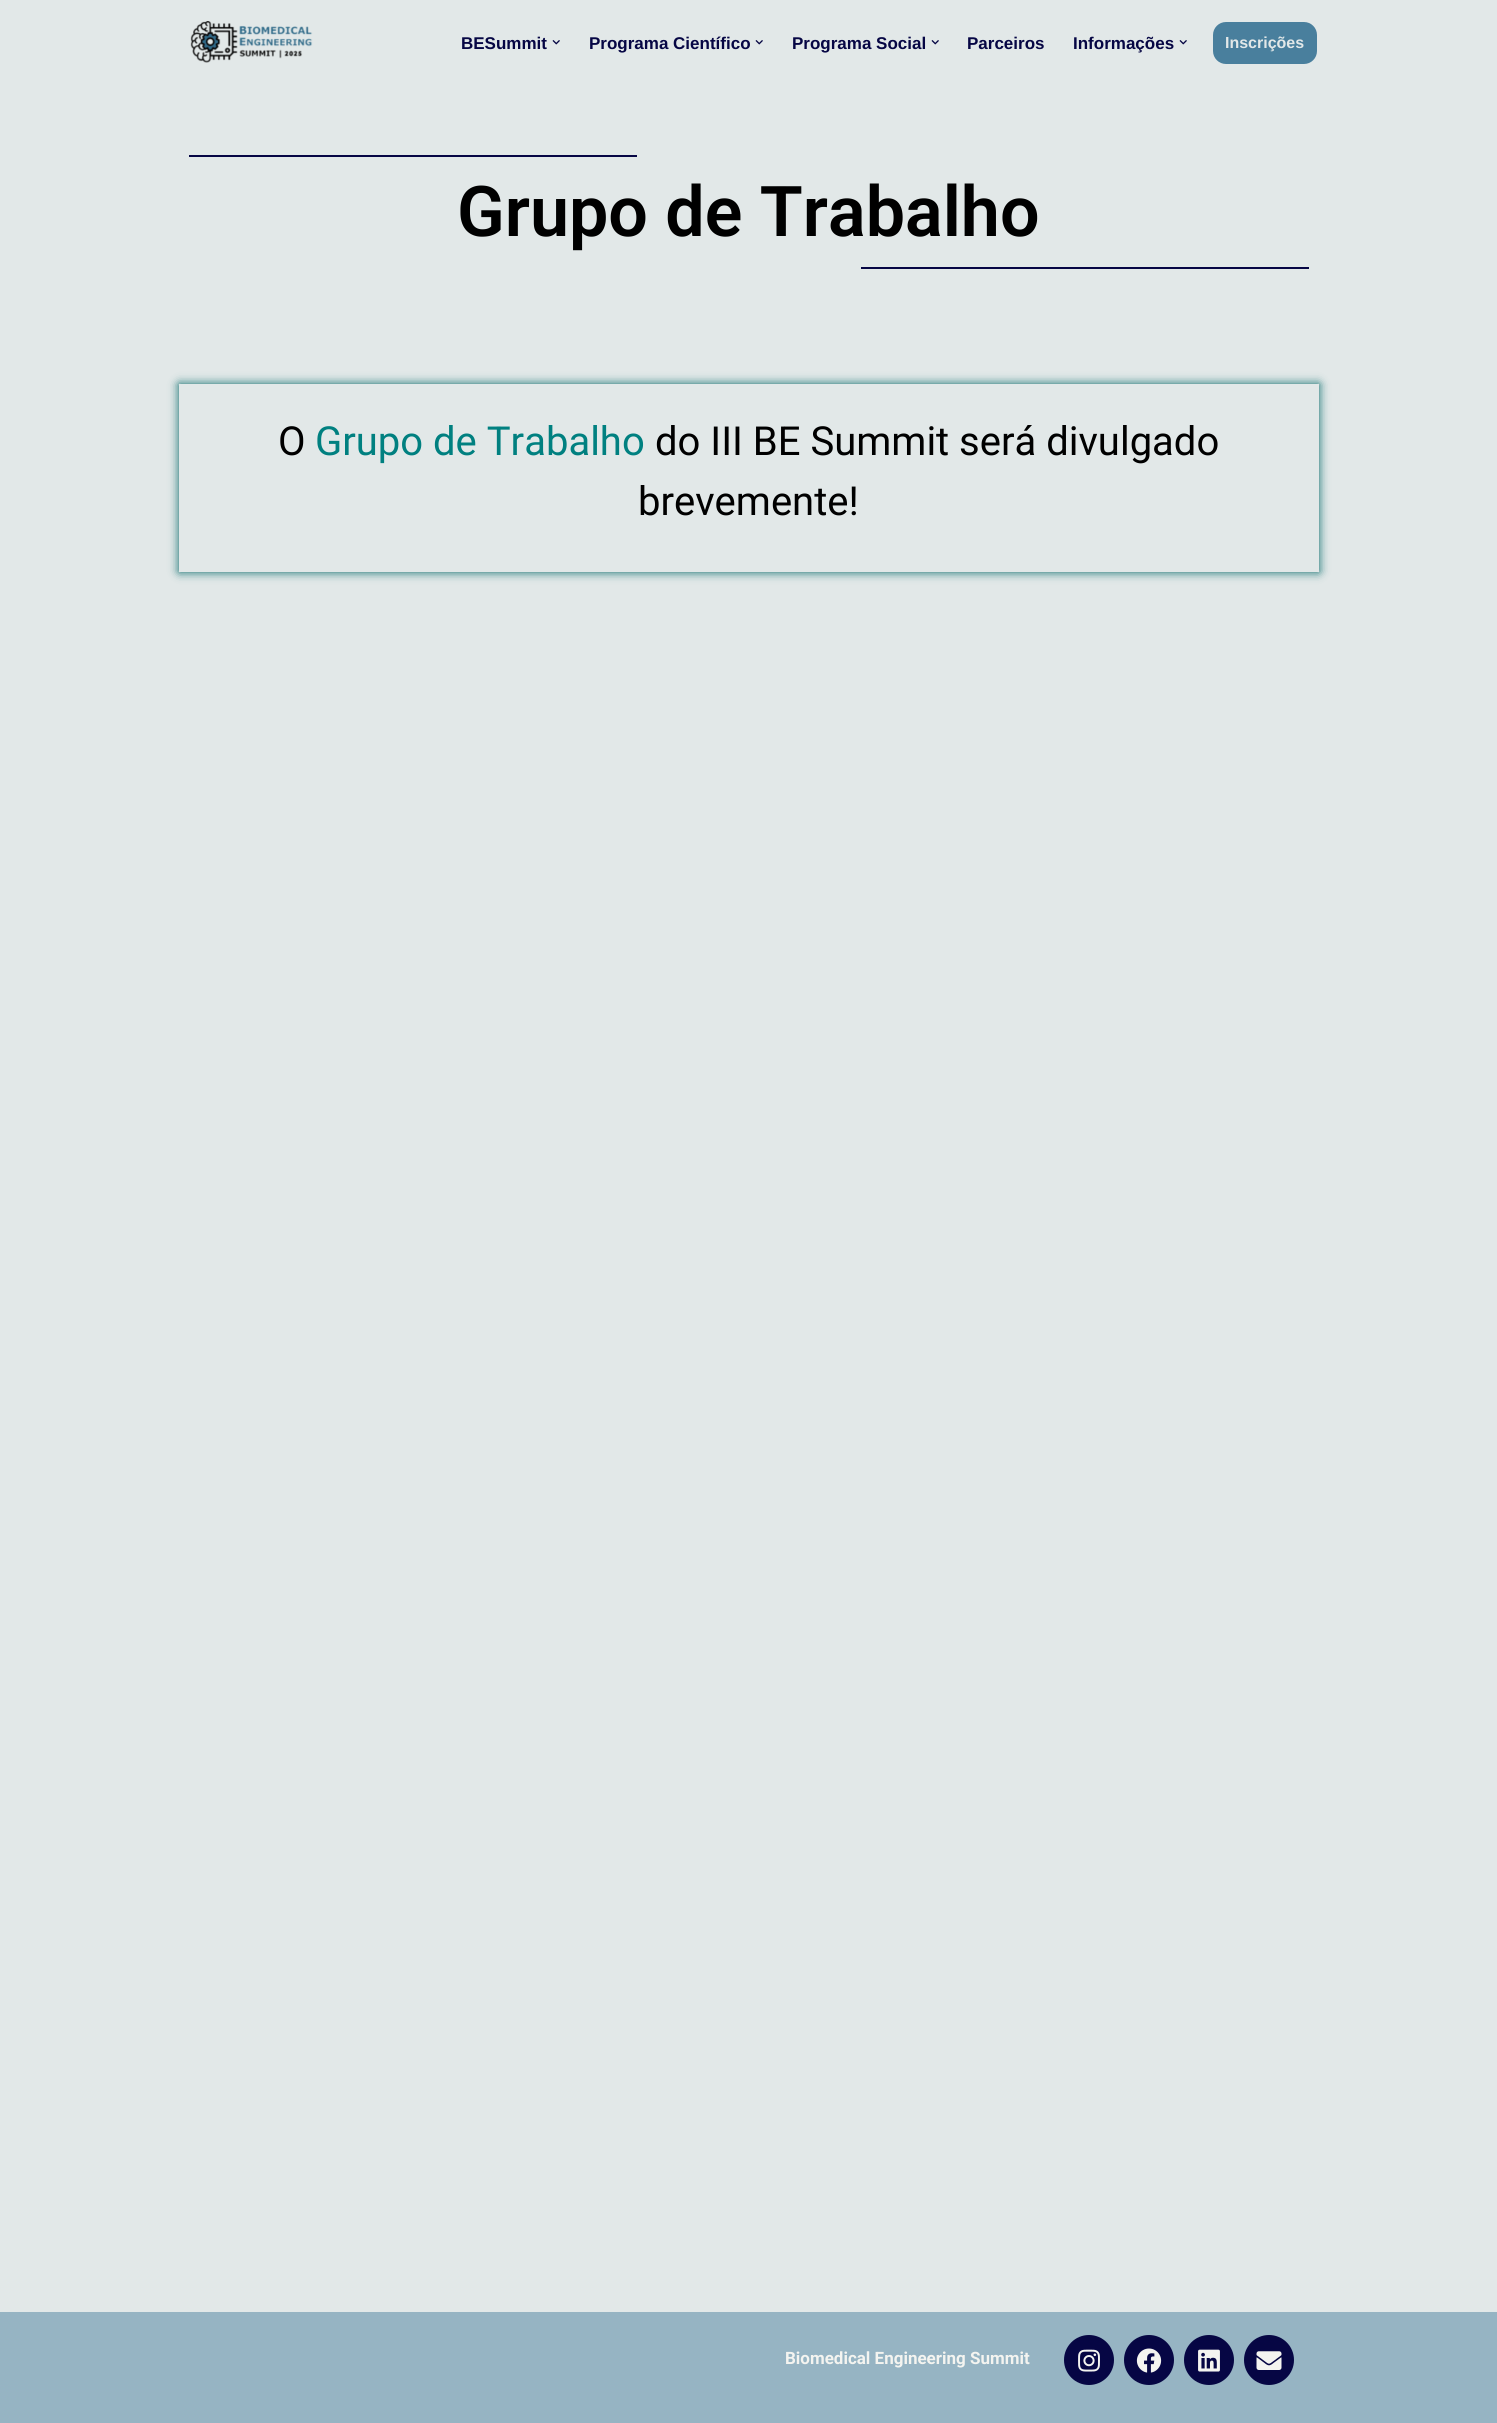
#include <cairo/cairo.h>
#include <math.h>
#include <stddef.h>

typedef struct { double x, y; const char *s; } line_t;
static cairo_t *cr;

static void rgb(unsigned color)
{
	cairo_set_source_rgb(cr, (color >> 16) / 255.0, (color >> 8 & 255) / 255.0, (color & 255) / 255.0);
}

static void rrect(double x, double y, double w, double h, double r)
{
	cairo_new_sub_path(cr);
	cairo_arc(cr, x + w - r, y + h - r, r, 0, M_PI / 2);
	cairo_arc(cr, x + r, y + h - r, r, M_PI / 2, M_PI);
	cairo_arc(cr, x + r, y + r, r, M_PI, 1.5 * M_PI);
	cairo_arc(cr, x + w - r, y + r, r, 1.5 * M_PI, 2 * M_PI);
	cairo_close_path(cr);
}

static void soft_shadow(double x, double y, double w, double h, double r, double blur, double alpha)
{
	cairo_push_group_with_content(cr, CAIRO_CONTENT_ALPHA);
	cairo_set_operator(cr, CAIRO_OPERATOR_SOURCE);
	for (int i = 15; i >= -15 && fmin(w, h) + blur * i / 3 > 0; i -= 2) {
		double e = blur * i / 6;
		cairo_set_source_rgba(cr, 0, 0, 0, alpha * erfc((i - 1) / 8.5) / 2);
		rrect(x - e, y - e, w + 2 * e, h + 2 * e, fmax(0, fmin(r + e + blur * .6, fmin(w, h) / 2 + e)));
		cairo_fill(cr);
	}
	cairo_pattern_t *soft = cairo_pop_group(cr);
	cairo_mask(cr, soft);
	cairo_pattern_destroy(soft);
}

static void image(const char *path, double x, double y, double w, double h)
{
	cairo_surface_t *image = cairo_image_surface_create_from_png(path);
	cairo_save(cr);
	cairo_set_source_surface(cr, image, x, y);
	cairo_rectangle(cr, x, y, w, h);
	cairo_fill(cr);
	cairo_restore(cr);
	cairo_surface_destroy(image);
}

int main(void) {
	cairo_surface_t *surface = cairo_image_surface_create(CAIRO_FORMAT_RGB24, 1497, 2423);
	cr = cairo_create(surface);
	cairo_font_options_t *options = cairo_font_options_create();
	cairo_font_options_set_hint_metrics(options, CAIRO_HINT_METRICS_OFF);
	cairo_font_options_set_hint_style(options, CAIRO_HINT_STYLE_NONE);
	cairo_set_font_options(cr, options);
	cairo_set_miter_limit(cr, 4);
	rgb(0xe2e8e8);
	cairo_paint(cr);
	image("img/1.png", 190, 21, 123, 42);
	image("img/2.png", 552, 40, 8, 5);
	image("img/2.png", 755, 40, 8, 5);
	image("img/2.png", 931, 40, 8, 5);
	image("img/2.png", 1179, 40, 8, 5);
	rgb(0x497f9d);
	rrect(1212, 21, 106, 44, 14);
	cairo_fill_preserve(cr);
	rgb(0xe2e8e8);
	cairo_stroke(cr);
	rgb(0x060644);
	cairo_rectangle(cr, 189, 155, 448, 2);
	cairo_fill(cr);
	cairo_rectangle(cr, 861, 267, 448, 2);
	cairo_fill(cr);
	cairo_save(cr);
	cairo_set_fill_rule(cr, CAIRO_FILL_RULE_EVEN_ODD);
	cairo_new_path(cr);
	cairo_move_to(cr, 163, 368);
	cairo_line_to(cr, 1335, 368);
	cairo_line_to(cr, 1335, 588);
	cairo_line_to(cr, 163, 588);
	cairo_close_path(cr);
	cairo_move_to(cr, 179, 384);
	cairo_line_to(cr, 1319, 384);
	cairo_line_to(cr, 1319, 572);
	cairo_line_to(cr, 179, 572);
	cairo_close_path(cr);
	cairo_clip(cr);
	rgb(0x006666);
	soft_shadow(179, 384, 1140, 188, 0, 5, 1);
	cairo_restore(cr);
	rgb(0x96b4c3);
	cairo_rectangle(cr, 0, 2312, 1497, 111);
	cairo_fill(cr);
	rgb(0x060644);
	cairo_arc(cr, 1089, 2360, 25, 0, 2 * M_PI);
	cairo_fill(cr);
	image("img/3.png", 1078, 2349, 22, 23);
	cairo_arc(cr, 1149, 2360, 25, 0, 2 * M_PI);
	cairo_fill(cr);
	image("img/4.png", 1136, 2348, 26, 25);
	cairo_arc(cr, 1209, 2360, 25, 0, 2 * M_PI);
	cairo_fill(cr);
	image("img/5.png", 1198, 2349, 22, 23);
	cairo_arc(cr, 1269, 2360, 25, 0, 2 * M_PI);
	cairo_fill(cr);
	image("img/6.png", 1256, 2351, 26, 19);
	cairo_select_font_face(cr, "Liberation Sans", CAIRO_FONT_SLANT_NORMAL, CAIRO_FONT_WEIGHT_BOLD);
	cairo_set_font_size(cr, 17);
	{
		static const line_t items[] = {
			{461, 49, "BESummit"},
			{589, 49, "Programa Científico"},
			{792, 49, "Programa Social"},
			{967, 49, "Parceiros"},
			{1073, 49, "Informações"},
		};
		for (size_t i = 0; i < sizeof items / sizeof *items; i++) {
			cairo_move_to(cr, items[i].x, items[i].y);
			cairo_show_text(cr, items[i].s);
		}
	}
	cairo_set_font_size(cr, 16);
	rgb(0xe2e8e8);
	cairo_move_to(cr, 1225, 48);
	cairo_show_text(cr, "Inscrições");
	cairo_select_font_face(cr, "Roboto SemiBold", CAIRO_FONT_SLANT_NORMAL, CAIRO_FONT_WEIGHT_NORMAL);
	cairo_set_font_size(cr, 70);
	rgb(0x000000);
	cairo_move_to(cr, 457, 236);
	cairo_show_text(cr, "Grupo de Trabalho");
	cairo_select_font_face(cr, "Roboto", CAIRO_FONT_SLANT_NORMAL, CAIRO_FONT_WEIGHT_NORMAL);
	cairo_set_font_size(cr, 40);
	cairo_move_to(cr, 278, 455);
	cairo_show_text(cr, "O");
	rgb(0x008080);
	cairo_move_to(cr, 315, 455);
	cairo_show_text(cr, "Grupo de Trabalho");
	rgb(0x000000);
	cairo_move_to(cr, 655, 455);
	cairo_show_text(cr, "do III BE Summit será divulgado");
	cairo_move_to(cr, 638, 515);
	cairo_show_text(cr, "brevemente!");
	cairo_select_font_face(cr, "Roboto", CAIRO_FONT_SLANT_NORMAL, CAIRO_FONT_WEIGHT_BOLD);
	cairo_set_font_size(cr, 17);
	rgb(0xf4f4f0);
	cairo_move_to(cr, 785, 2364);
	cairo_show_text(cr, "Biomedical Engineering Summit");
	cairo_surface_write_to_png(surface, "page.png");
	cairo_font_options_destroy(options);
	cairo_destroy(cr);
	cairo_surface_destroy(surface);
	return 0;
}
